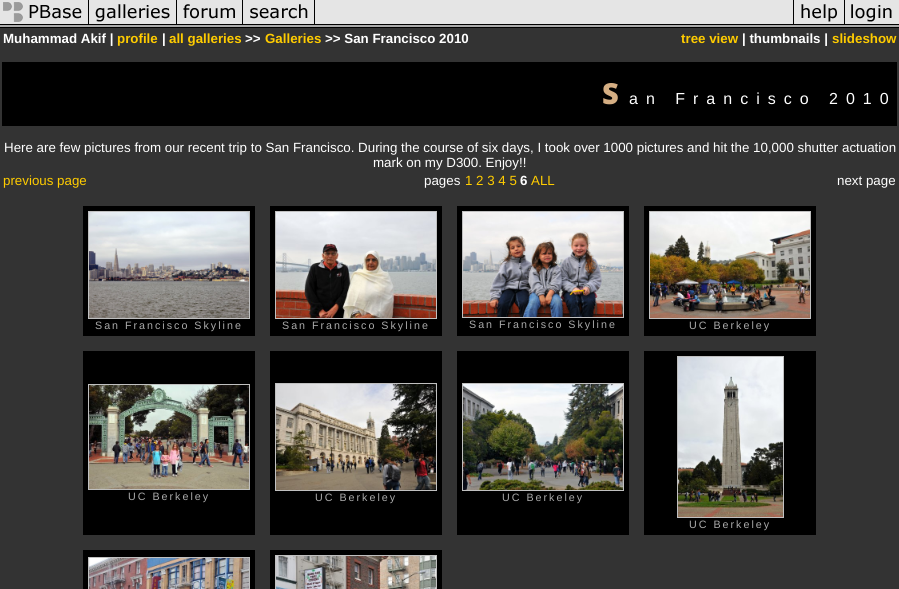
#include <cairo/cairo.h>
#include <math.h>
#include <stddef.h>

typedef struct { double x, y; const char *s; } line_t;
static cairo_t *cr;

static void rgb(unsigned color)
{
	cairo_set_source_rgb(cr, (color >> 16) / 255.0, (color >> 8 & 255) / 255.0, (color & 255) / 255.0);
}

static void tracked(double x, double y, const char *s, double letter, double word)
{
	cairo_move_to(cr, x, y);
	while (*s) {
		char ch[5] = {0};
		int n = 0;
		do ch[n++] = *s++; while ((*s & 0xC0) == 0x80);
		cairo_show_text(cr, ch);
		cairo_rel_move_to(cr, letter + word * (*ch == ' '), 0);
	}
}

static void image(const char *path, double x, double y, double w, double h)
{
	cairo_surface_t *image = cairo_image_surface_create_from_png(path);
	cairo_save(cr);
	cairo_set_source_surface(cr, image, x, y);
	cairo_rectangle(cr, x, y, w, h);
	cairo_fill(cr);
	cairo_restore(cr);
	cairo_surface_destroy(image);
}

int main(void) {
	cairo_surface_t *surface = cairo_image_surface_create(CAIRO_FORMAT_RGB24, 899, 589);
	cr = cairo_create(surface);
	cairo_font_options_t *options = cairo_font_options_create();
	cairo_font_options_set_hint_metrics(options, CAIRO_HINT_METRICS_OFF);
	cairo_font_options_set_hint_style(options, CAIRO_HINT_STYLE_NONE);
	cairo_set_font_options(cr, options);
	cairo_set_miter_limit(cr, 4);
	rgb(0x333333);
	cairo_paint(cr);
	image("img/1.png", 0, 0, 89, 28);
	image("img/2.png", 89, 0, 88, 28);
	image("img/3.png", 177, 0, 66, 28);
	image("img/4.png", 243, 0, 72, 28);
	image("img/5.png", 315, 0, 478, 28);
	image("img/6.png", 793, 0, 52, 28);
	image("img/7.png", 845, 0, 54, 28);
	rgb(0x000000);
	cairo_rectangle(cr, 2, 62, 895, 64);
	cairo_fill(cr);
	cairo_rectangle(cr, 83, 206, 172, 130);
	cairo_fill(cr);
	cairo_rectangle(cr, 88.5, 211.5, 161, 107);
	rgb(0xc0c0c0);
	cairo_set_line_width(cr, 1);
	cairo_stroke(cr);
	image("img/8.png", 89, 212, 160, 106);
	rgb(0x000000);
	cairo_rectangle(cr, 270, 206, 172, 130);
	cairo_fill(cr);
	cairo_rectangle(cr, 275.5, 211.5, 161, 107);
	rgb(0xc0c0c0);
	cairo_stroke(cr);
	image("img/9.png", 276, 212, 160, 106);
	rgb(0x000000);
	cairo_rectangle(cr, 457, 206, 172, 130);
	cairo_fill(cr);
	cairo_rectangle(cr, 462.5, 211.5, 161, 106);
	rgb(0xc0c0c0);
	cairo_stroke(cr);
	image("img/10.png", 463, 212, 160, 105);
	rgb(0x000000);
	cairo_rectangle(cr, 644, 206, 172, 130);
	cairo_fill(cr);
	cairo_rectangle(cr, 649.5, 211.5, 161, 107);
	rgb(0xc0c0c0);
	cairo_stroke(cr);
	image("img/11.png", 650, 212, 160, 106);
	rgb(0x000000);
	cairo_rectangle(cr, 83, 351, 172, 184);
	cairo_fill(cr);
	cairo_rectangle(cr, 88.5, 384.5, 161, 105);
	rgb(0xc0c0c0);
	cairo_stroke(cr);
	image("img/12.png", 89, 385, 160, 104);
	rgb(0x000000);
	cairo_rectangle(cr, 270, 351, 172, 184);
	cairo_fill(cr);
	cairo_rectangle(cr, 275.5, 383.5, 161, 107);
	rgb(0xc0c0c0);
	cairo_stroke(cr);
	image("img/13.png", 276, 384, 160, 106);
	rgb(0x000000);
	cairo_rectangle(cr, 457, 351, 172, 184);
	cairo_fill(cr);
	cairo_rectangle(cr, 462.5, 383.5, 161, 107);
	rgb(0xc0c0c0);
	cairo_stroke(cr);
	image("img/14.png", 463, 384, 160, 106);
	rgb(0x000000);
	cairo_rectangle(cr, 644, 351, 172, 184);
	cairo_fill(cr);
	cairo_rectangle(cr, 677.5, 356.5, 106, 161);
	rgb(0xc0c0c0);
	cairo_stroke(cr);
	image("img/15.png", 678, 357, 105, 160);
	rgb(0x000000);
	cairo_rectangle(cr, 83, 550, 172, 39);
	cairo_fill(cr);
	cairo_rectangle(cr, 88.5, 557.5, 161, 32);
	rgb(0xc0c0c0);
	cairo_stroke(cr);
	image("img/16.png", 89, 558, 160, 31);
	rgb(0x000000);
	cairo_rectangle(cr, 270, 550, 172, 39);
	cairo_fill(cr);
	cairo_rectangle(cr, 275.5, 555.5, 161, 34);
	rgb(0xc0c0c0);
	cairo_stroke(cr);
	image("img/17.png", 276, 556, 160, 33);
	cairo_select_font_face(cr, "Liberation Sans", CAIRO_FONT_SLANT_NORMAL, CAIRO_FONT_WEIGHT_BOLD);
	cairo_set_font_size(cr, 13.33);
	rgb(0xffffff);
	cairo_move_to(cr, 3, 43);
	cairo_show_text(cr, "Muhammad Akif |");
	rgb(0xffcc00);
	cairo_move_to(cr, 117, 43);
	cairo_show_text(cr, "profile");
	rgb(0xffffff);
	cairo_move_to(cr, 162, 43);
	cairo_show_text(cr, "|");
	rgb(0xffcc00);
	cairo_move_to(cr, 169, 43);
	cairo_show_text(cr, "all galleries");
	rgb(0xffffff);
	cairo_move_to(cr, 245, 43);
	cairo_show_text(cr, ">>");
	rgb(0xffcc00);
	cairo_move_to(cr, 265, 43);
	cairo_show_text(cr, "Galleries");
	rgb(0xffffff);
	cairo_move_to(cr, 325, 43);
	cairo_show_text(cr, ">> San Francisco 2010");
	rgb(0xffcc00);
	cairo_move_to(cr, 681, 43);
	cairo_show_text(cr, "tree view");
	rgb(0xffffff);
	cairo_move_to(cr, 742, 43);
	cairo_show_text(cr, "| thumbnails |");
	rgb(0xffcc00);
	cairo_move_to(cr, 832, 43);
	cairo_show_text(cr, "slideshow");
	cairo_select_font_face(cr, "Noto Sans Black", CAIRO_FONT_SLANT_NORMAL, CAIRO_FONT_WEIGHT_NORMAL);
	cairo_set_font_size(cr, 29);
	rgb(0xd5ae83);
	tracked(602, 104, "S", 8, 0);
	cairo_select_font_face(cr, "Liberation Sans", CAIRO_FONT_SLANT_NORMAL, CAIRO_FONT_WEIGHT_NORMAL);
	cairo_set_font_size(cr, 16);
	rgb(0xffffff);
	tracked(629, 104, "an Francisco 2010", 8, 0);
	cairo_set_font_size(cr, 13.33);
	cairo_move_to(cr, 4, 152);
	cairo_show_text(cr, "Here are few pictures from our recent trip to San Francisco. During the course of six days, I took over 1000 pictures and hit the 10,000 shutter actuation");
	cairo_move_to(cr, 373, 167);
	cairo_show_text(cr, "mark on my D300. Enjoy!!");
	rgb(0xffcc00);
	cairo_move_to(cr, 3, 185);
	cairo_show_text(cr, "previous page");
	rgb(0xffffff);
	cairo_move_to(cr, 424, 185);
	cairo_show_text(cr, "pages");
	rgb(0xffcc00);
	cairo_move_to(cr, 465, 185);
	cairo_show_text(cr, "1 2 3 4 5");
	cairo_select_font_face(cr, "Liberation Sans", CAIRO_FONT_SLANT_NORMAL, CAIRO_FONT_WEIGHT_BOLD);
	rgb(0xffffff);
	cairo_move_to(cr, 520, 185);
	cairo_show_text(cr, "6");
	cairo_select_font_face(cr, "Liberation Sans", CAIRO_FONT_SLANT_NORMAL, CAIRO_FONT_WEIGHT_NORMAL);
	rgb(0xffcc00);
	cairo_move_to(cr, 531, 185);
	cairo_show_text(cr, "ALL");
	rgb(0xffffff);
	cairo_move_to(cr, 837, 185);
	cairo_show_text(cr, "next page");
	cairo_set_font_size(cr, 10.7);
	rgb(0xaaaaaa);
	{
		static const line_t items[] = {
			{95, 329, "San Francisco Skyline"},
			{282, 329, "San Francisco Skyline"},
			{469, 328, "San Francisco Skyline"},
			{689, 329, "UC Berkeley"},
			{128, 500, "UC Berkeley"},
			{315, 501, "UC Berkeley"},
			{502, 501, "UC Berkeley"},
			{689, 528, "UC Berkeley"},
		};
		for (size_t i = 0; i < sizeof items / sizeof *items; i++) {
			tracked(items[i].x, items[i].y, items[i].s, 2, 0);
		}
	}
	cairo_surface_write_to_png(surface, "page.png");
	cairo_font_options_destroy(options);
	cairo_destroy(cr);
	cairo_surface_destroy(surface);
	return 0;
}
